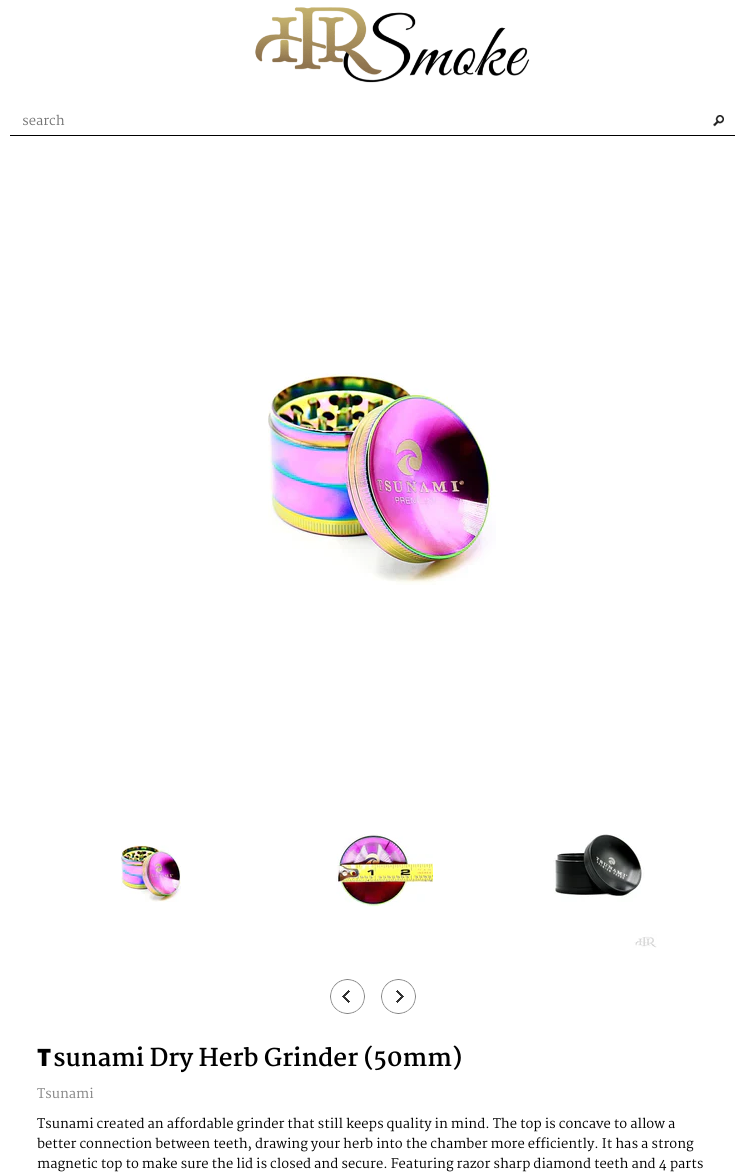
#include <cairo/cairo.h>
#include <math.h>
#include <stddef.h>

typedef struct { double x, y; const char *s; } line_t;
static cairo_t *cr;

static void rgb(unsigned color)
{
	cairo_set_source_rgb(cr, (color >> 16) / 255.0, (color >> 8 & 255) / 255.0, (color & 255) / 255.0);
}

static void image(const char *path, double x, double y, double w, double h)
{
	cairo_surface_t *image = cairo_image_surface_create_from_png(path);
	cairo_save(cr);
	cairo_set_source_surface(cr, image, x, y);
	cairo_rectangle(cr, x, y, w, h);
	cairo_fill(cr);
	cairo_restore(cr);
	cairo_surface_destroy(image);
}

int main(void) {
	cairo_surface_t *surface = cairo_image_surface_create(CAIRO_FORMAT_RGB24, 745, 1174);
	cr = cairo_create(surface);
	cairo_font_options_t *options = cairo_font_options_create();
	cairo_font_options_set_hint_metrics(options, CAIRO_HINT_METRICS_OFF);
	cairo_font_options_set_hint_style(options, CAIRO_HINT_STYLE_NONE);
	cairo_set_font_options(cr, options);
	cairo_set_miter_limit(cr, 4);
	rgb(0xffffff);
	cairo_paint(cr);
	image("img/1.png", 255, 7, 275, 76);
	rgb(0x000000);
	cairo_rectangle(cr, 10, 135, 725, 1);
	cairo_fill(cr);
	image("img/2.png", 713, 115, 11, 12);
	image("img/3.png", 268, 373, 228, 212);
	image("img/4.png", 121, 845, 60, 57);
	image("img/5.png", 336, 834, 97, 73);
	image("img/6.png", 553, 834, 104, 114);
	image("img/7.png", 330, 979, 35, 35);
	image("img/8.png", 381, 979, 35, 35);
	cairo_select_font_face(cr, "Martel", CAIRO_FONT_SLANT_NORMAL, CAIRO_FONT_WEIGHT_NORMAL);
	cairo_set_font_size(cr, 13);
	rgb(0x757575);
	cairo_move_to(cr, 22, 125);
	cairo_show_text(cr, "search");
	cairo_select_font_face(cr, "Noto Sans Black", CAIRO_FONT_SLANT_NORMAL, CAIRO_FONT_WEIGHT_NORMAL);
	cairo_set_font_size(cr, 24);
	rgb(0x000000);
	cairo_move_to(cr, 37, 1066);
	cairo_show_text(cr, "T");
	cairo_select_font_face(cr, "Martel", CAIRO_FONT_SLANT_NORMAL, CAIRO_FONT_WEIGHT_BOLD);
	cairo_move_to(cr, 53, 1066);
	cairo_show_text(cr, "sunami Dry Herb Grinder (50mm)");
	cairo_select_font_face(cr, "Martel", CAIRO_FONT_SLANT_NORMAL, CAIRO_FONT_WEIGHT_NORMAL);
	cairo_set_font_size(cr, 13);
	rgb(0x848484);
	cairo_move_to(cr, 37, 1098);
	cairo_show_text(cr, "Tsunami");
	rgb(0x000000);
	{
		static const line_t items[] = {
			{37, 1128, "Tsunami created an affordable grinder that still keeps quality in mind. The top is concave to allow a"},
			{37, 1148, "better connection between teeth, drawing your herb into the chamber more efficiently. It has a strong"},
			{37, 1168, "magnetic top to make sure the lid is closed and secure. Featuring razor sharp diamond teeth and 4 parts"},
		};
		for (size_t i = 0; i < sizeof items / sizeof *items; i++) {
			cairo_move_to(cr, items[i].x, items[i].y);
			cairo_show_text(cr, items[i].s);
		}
	}
	cairo_surface_write_to_png(surface, "page.png");
	cairo_font_options_destroy(options);
	cairo_destroy(cr);
	cairo_surface_destroy(surface);
	return 0;
}
